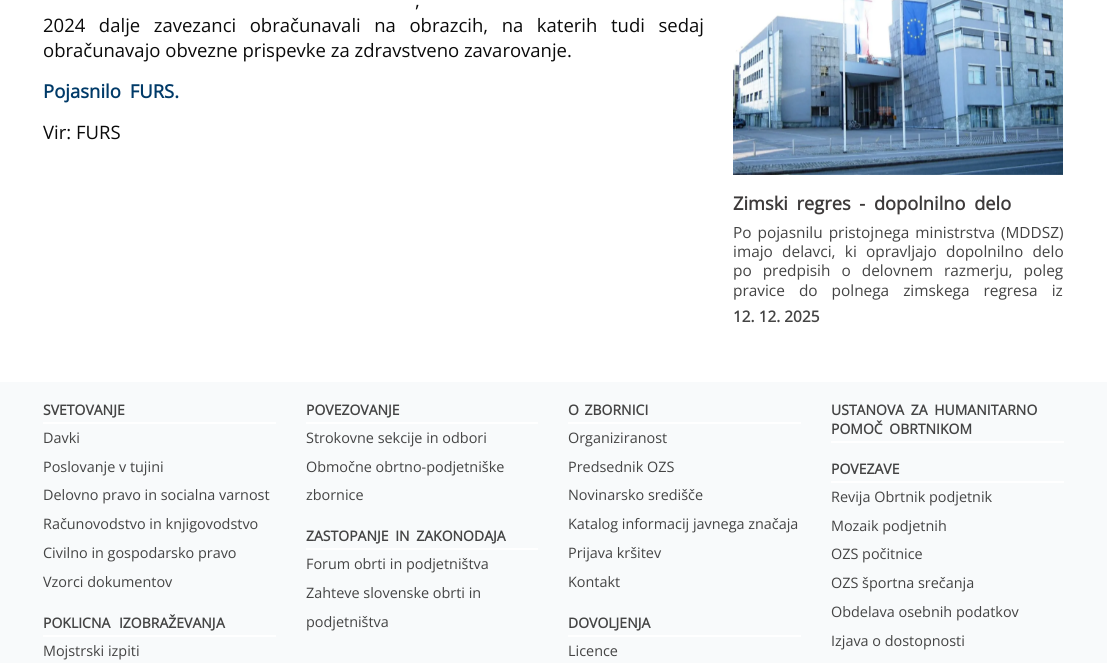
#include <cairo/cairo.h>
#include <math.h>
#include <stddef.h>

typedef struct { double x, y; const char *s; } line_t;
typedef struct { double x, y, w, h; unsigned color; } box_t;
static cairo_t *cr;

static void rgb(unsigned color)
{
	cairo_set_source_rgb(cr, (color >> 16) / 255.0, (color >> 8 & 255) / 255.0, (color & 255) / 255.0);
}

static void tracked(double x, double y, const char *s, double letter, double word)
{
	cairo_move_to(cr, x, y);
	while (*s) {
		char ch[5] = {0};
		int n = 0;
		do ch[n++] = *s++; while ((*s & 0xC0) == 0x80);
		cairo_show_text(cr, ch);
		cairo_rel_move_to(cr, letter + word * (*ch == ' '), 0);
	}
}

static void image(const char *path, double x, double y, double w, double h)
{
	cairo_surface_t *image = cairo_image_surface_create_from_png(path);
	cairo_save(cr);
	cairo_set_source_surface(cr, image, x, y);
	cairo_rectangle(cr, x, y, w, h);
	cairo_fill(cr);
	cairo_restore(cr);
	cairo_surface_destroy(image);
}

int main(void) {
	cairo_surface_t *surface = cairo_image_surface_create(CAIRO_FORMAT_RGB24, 1107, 663);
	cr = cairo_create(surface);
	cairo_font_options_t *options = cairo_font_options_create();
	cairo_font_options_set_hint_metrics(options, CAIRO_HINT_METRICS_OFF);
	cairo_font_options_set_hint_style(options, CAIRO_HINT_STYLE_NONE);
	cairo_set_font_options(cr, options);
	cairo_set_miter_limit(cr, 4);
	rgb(0xffffff);
	cairo_paint(cr);
	image("img/1.png", 733, 0, 330, 175);
	{
		static const box_t items[] = {
			{0, 382, 1107, 281, 0xf8fafb},
			{43, 422, 233, 2, 0xffffff},
			{43, 635, 233, 2, 0xffffff},
			{306, 422, 232, 2, 0xffffff},
			{306, 548, 232, 2, 0xffffff},
			{568, 422, 233, 2, 0xffffff},
			{568, 635, 233, 2, 0xffffff},
			{831, 441, 233, 2, 0xffffff},
			{831, 481, 233, 2, 0xffffff},
		};
		for (size_t i = 0; i < sizeof items / sizeof *items; i++) {
			rgb(items[i].color);
			cairo_rectangle(cr, items[i].x, items[i].y, items[i].w, items[i].h);
			cairo_fill(cr);
		}
	}
	cairo_select_font_face(cr, "Open Sans", CAIRO_FONT_SLANT_NORMAL, CAIRO_FONT_WEIGHT_NORMAL);
	cairo_set_font_size(cr, 18.5);
	rgb(0x0a0a0a);
	cairo_move_to(cr, 415, 7);
	cairo_show_text(cr, ",");
	tracked(43, 32, "2024 dalje zavezanci obračunavali na obrazcih, na katerih tudi sedaj", 0, 8.75);
	cairo_move_to(cr, 43, 57);
	cairo_show_text(cr, "obračunavajo obvezne prispevke za zdravstveno zavarovanje.");
	cairo_select_font_face(cr, "Open Sans", CAIRO_FONT_SLANT_NORMAL, CAIRO_FONT_WEIGHT_BOLD);
	rgb(0x003a68);
	tracked(43, 98, "Pojasnilo FURS.", 0, 4);
	cairo_select_font_face(cr, "Open Sans", CAIRO_FONT_SLANT_NORMAL, CAIRO_FONT_WEIGHT_NORMAL);
	rgb(0x0a0a0a);
	cairo_move_to(cr, 43, 139);
	cairo_show_text(cr, "Vir: FURS");
	cairo_select_font_face(cr, "Open Sans", CAIRO_FONT_SLANT_NORMAL, CAIRO_FONT_WEIGHT_BOLD);
	cairo_set_font_size(cr, 18.25);
	rgb(0x3d3a3a);
	tracked(733, 210, "Zimski regres - dopolnilno delo", 0, 4);
	cairo_select_font_face(cr, "Open Sans", CAIRO_FONT_SLANT_NORMAL, CAIRO_FONT_WEIGHT_NORMAL);
	cairo_set_font_size(cr, 15.4);
	rgb(0x444444);
	tracked(733, 238, "Po pojasnilu pristojnega ministrstva (MDDSZ)", 0, 2);
	tracked(733, 257, "imajo delavci, ki opravljajo dopolnilno delo", 0, 5.25);
	tracked(733, 276, "po predpisih o delovnem razmerju, poleg", 0, 7);
	tracked(733, 296, "pravice do polnega zimskega regresa iz", 0, 10);
	cairo_select_font_face(cr, "Open Sans", CAIRO_FONT_SLANT_NORMAL, CAIRO_FONT_WEIGHT_BOLD);
	cairo_move_to(cr, 733, 322);
	cairo_show_text(cr, "12. 12. 2025");
	cairo_set_font_size(cr, 14);
	cairo_move_to(cr, 43, 415);
	cairo_show_text(cr, "SVETOVANJE");
	cairo_select_font_face(cr, "Open Sans", CAIRO_FONT_SLANT_NORMAL, CAIRO_FONT_WEIGHT_NORMAL);
	cairo_set_font_size(cr, 14.4);
	{
		static const line_t items[] = {
			{43, 443, "Davki"},
			{43, 472, "Poslovanje v tujini"},
			{43, 500, "Delovno pravo in socialna varnost"},
			{43, 529, "Računovodstvo in knjigovodstvo"},
			{43, 558, "Civilno in gospodarsko pravo"},
			{43, 587, "Vzorci dokumentov"},
		};
		for (size_t i = 0; i < sizeof items / sizeof *items; i++) {
			cairo_move_to(cr, items[i].x, items[i].y);
			cairo_show_text(cr, items[i].s);
		}
	}
	cairo_select_font_face(cr, "Open Sans", CAIRO_FONT_SLANT_NORMAL, CAIRO_FONT_WEIGHT_BOLD);
	cairo_set_font_size(cr, 14);
	tracked(43, 628, "POKLICNA IZOBRAŽEVANJ", 0, 5);
	cairo_move_to(cr, 216, 628);
	cairo_show_text(cr, "A");
	cairo_select_font_face(cr, "Open Sans", CAIRO_FONT_SLANT_NORMAL, CAIRO_FONT_WEIGHT_NORMAL);
	cairo_set_font_size(cr, 14.4);
	cairo_move_to(cr, 43, 656);
	cairo_show_text(cr, "Mojstrski izpiti");
	cairo_select_font_face(cr, "Open Sans", CAIRO_FONT_SLANT_NORMAL, CAIRO_FONT_WEIGHT_BOLD);
	cairo_set_font_size(cr, 14);
	cairo_move_to(cr, 306, 415);
	cairo_show_text(cr, "POVEZOVANJE");
	cairo_select_font_face(cr, "Open Sans", CAIRO_FONT_SLANT_NORMAL, CAIRO_FONT_WEIGHT_NORMAL);
	cairo_set_font_size(cr, 14.4);
	{
		static const line_t items[] = {
			{306, 443, "Strokovne sekcije in odbori"},
			{306, 472, "Območne obrtno-podjetniške"},
			{306, 500, "zbornice"},
		};
		for (size_t i = 0; i < sizeof items / sizeof *items; i++) {
			cairo_move_to(cr, items[i].x, items[i].y);
			cairo_show_text(cr, items[i].s);
		}
	}
	cairo_select_font_face(cr, "Open Sans", CAIRO_FONT_SLANT_NORMAL, CAIRO_FONT_WEIGHT_BOLD);
	cairo_set_font_size(cr, 14);
	tracked(306, 541, "ZASTOPANJE IN ZAKONODAJA", 0, 3);
	cairo_select_font_face(cr, "Open Sans", CAIRO_FONT_SLANT_NORMAL, CAIRO_FONT_WEIGHT_NORMAL);
	cairo_set_font_size(cr, 14.4);
	{
		static const line_t items[] = {
			{306, 569, "Forum obrti in podjetništva"},
			{306, 598, "Zahteve slovenske obrti in"},
			{306, 627, "podjetništva"},
		};
		for (size_t i = 0; i < sizeof items / sizeof *items; i++) {
			cairo_move_to(cr, items[i].x, items[i].y);
			cairo_show_text(cr, items[i].s);
		}
	}
	cairo_select_font_face(cr, "Open Sans", CAIRO_FONT_SLANT_NORMAL, CAIRO_FONT_WEIGHT_BOLD);
	cairo_set_font_size(cr, 14);
	tracked(568, 415, "O ZBORNICI", 0, 2);
	cairo_select_font_face(cr, "Open Sans", CAIRO_FONT_SLANT_NORMAL, CAIRO_FONT_WEIGHT_NORMAL);
	cairo_set_font_size(cr, 14.4);
	{
		static const line_t items[] = {
			{568, 443, "Organiziranost"},
			{568, 472, "Predsednik OZS"},
			{568, 500, "Novinarsko središče"},
			{568, 529, "Katalog informacij javnega značaja"},
			{568, 558, "Prijava kršitev"},
			{568, 587, "Kontakt"},
		};
		for (size_t i = 0; i < sizeof items / sizeof *items; i++) {
			cairo_move_to(cr, items[i].x, items[i].y);
			cairo_show_text(cr, items[i].s);
		}
	}
	cairo_select_font_face(cr, "Open Sans", CAIRO_FONT_SLANT_NORMAL, CAIRO_FONT_WEIGHT_BOLD);
	cairo_set_font_size(cr, 14);
	cairo_move_to(cr, 568, 628);
	cairo_show_text(cr, "DOVOLJENJA");
	cairo_select_font_face(cr, "Open Sans", CAIRO_FONT_SLANT_NORMAL, CAIRO_FONT_WEIGHT_NORMAL);
	cairo_set_font_size(cr, 14.4);
	cairo_move_to(cr, 568, 656);
	cairo_show_text(cr, "Licence");
	cairo_select_font_face(cr, "Open Sans", CAIRO_FONT_SLANT_NORMAL, CAIRO_FONT_WEIGHT_BOLD);
	cairo_set_font_size(cr, 14);
	tracked(831, 415, "USTANOVA ZA HUMANITARNO", 0, 3);
	tracked(831, 434, "POMOČ OBRTNIKOM", 0, 3);
	cairo_move_to(cr, 831, 474);
	cairo_show_text(cr, "POVEZAVE");
	cairo_select_font_face(cr, "Open Sans", CAIRO_FONT_SLANT_NORMAL, CAIRO_FONT_WEIGHT_NORMAL);
	cairo_set_font_size(cr, 14.4);
	{
		static const line_t items[] = {
			{831, 502, "Revija Obrtnik podjetnik"},
			{831, 531, "Mozaik podjetnih"},
			{831, 559, "OZS počitnice"},
			{831, 588, "OZS športna srečanja"},
			{831, 617, "Obdelava osebnih podatkov"},
			{831, 646, "Izjava o dostopnosti"},
		};
		for (size_t i = 0; i < sizeof items / sizeof *items; i++) {
			cairo_move_to(cr, items[i].x, items[i].y);
			cairo_show_text(cr, items[i].s);
		}
	}
	cairo_surface_write_to_png(surface, "page.png");
	cairo_font_options_destroy(options);
	cairo_destroy(cr);
	cairo_surface_destroy(surface);
	return 0;
}
